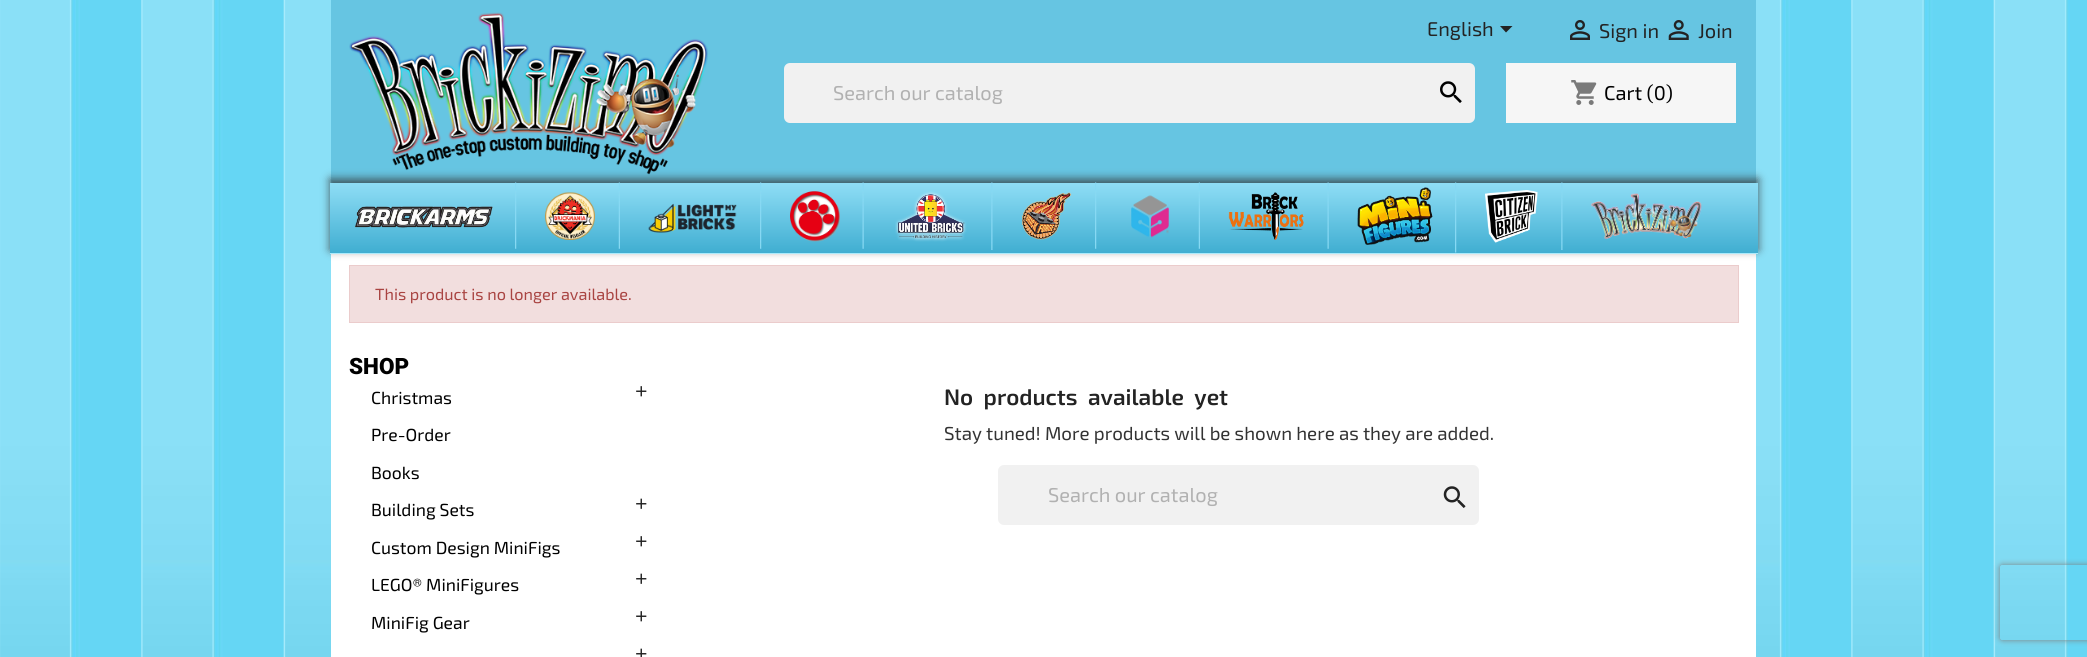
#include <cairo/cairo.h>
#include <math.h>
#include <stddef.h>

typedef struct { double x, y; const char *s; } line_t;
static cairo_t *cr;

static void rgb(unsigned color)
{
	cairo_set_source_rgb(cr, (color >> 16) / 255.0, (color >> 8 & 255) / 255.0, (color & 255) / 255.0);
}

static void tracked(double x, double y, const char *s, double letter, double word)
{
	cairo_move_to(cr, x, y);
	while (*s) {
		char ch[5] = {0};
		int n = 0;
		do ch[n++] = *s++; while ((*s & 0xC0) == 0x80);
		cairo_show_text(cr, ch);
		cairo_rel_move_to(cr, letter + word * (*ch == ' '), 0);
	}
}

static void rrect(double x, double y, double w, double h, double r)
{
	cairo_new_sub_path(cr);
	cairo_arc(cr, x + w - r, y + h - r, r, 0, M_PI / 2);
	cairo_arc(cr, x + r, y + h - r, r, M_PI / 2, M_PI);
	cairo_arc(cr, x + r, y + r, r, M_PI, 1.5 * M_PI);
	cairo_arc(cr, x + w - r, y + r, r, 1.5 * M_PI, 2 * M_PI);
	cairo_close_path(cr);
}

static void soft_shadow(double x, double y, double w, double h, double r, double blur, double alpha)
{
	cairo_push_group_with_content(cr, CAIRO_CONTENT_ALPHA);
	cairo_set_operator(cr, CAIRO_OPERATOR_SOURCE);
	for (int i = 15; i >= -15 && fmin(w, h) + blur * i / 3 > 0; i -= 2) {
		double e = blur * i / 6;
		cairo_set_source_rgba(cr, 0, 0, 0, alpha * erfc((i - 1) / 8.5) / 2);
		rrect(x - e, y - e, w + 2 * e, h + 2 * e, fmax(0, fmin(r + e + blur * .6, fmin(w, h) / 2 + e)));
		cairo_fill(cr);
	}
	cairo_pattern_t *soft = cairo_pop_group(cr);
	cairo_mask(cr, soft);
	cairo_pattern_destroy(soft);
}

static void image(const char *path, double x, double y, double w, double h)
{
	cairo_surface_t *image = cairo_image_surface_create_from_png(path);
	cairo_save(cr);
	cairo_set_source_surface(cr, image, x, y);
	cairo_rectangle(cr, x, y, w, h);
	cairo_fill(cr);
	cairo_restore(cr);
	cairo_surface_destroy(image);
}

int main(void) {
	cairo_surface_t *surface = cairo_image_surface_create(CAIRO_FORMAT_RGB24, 2087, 657);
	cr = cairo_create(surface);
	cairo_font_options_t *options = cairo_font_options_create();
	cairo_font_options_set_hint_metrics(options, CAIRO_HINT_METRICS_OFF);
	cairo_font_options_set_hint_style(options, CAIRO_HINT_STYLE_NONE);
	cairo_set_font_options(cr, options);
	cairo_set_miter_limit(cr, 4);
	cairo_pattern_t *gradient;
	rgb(0x65d6f4);
	cairo_paint(cr);
	image("img/1.png", 0, 0, 2070, 657);
	image("img/3.png", 1756, 181, 2, 2);
	rgb(0x66c5e2);
	cairo_rectangle(cr, 331, 0, 1425, 183);
	cairo_fill(cr);
	rgb(0xffffff);
	cairo_rectangle(cr, 331, 254, 1425, 403);
	cairo_fill(cr);
	rgb(0x323232);
	soft_shadow(330, 179, 1428, 71, 0, 4.5, 0.78);
	image("img/2.png", 349, 12, 359, 163);
	gradient = cairo_pattern_create_linear(1044, 182, 1044, 253);
	cairo_pattern_add_color_stop_rgba(gradient, 0, 0.565, 0.871, 0.965, 1);
	cairo_pattern_add_color_stop_rgba(gradient, 1, 0.251, 0.682, 0.82, 1);
	cairo_set_source(cr, gradient);
	cairo_pattern_destroy(gradient);
	cairo_rectangle(cr, 330, 183, 1428, 70);
	cairo_fill(cr);
	rgb(0xabeafb);
	cairo_rectangle(cr, 330, 253, 1428, 1);
	cairo_fill(cr);
	image("img/4.png", 515, 182, 2, 67);
	image("img/5.png", 355, 206, 138, 22);
	image("img/6.png", 618, 182, 2, 67);
	image("img/7.png", 545, 192, 50, 48);
	image("img/4.png", 760, 182, 2, 67);
	image("img/8.png", 648, 203, 89, 30);
	image("img/9.png", 862, 182, 2, 67);
	image("img/10.png", 790, 191, 50, 51);
	image("img/11.png", 991, 182, 2, 68);
	image("img/12.png", 895, 191, 72, 51);
	image("img/4.png", 1095, 182, 2, 67);
	image("img/13.png", 1022, 192, 50, 48);
	image("img/14.png", 1198, 182, 2, 67);
	image("img/15.png", 1131, 195, 38, 43);
	image("img/16.png", 1327, 182, 2, 67);
	image("img/17.png", 1228, 192, 76, 48);
	image("img/18.png", 1455, 182, 2, 71);
	image("img/19.png", 1357, 187, 76, 58);
	image("img/20.png", 1561, 182, 2, 68);
	image("img/21.png", 1485, 190, 53, 53);
	image("img/22.png", 1591, 193, 111, 46);
	rgb(0x232323);
	cairo_new_path(cr);
	cairo_move_to(cr, 1500, 26);
	cairo_line_to(cr, 1512.5, 26);
	cairo_line_to(cr, 1506, 32.5);
	cairo_close_path(cr);
	cairo_fill(cr);
	image("img/23.png", 1570, 20, 20, 20);
	image("img/24.png", 1668, 20, 21, 20);
	rgb(0xf1f1f1);
	rrect(784, 63, 691, 60, 6);
	cairo_fill(cr);
	image("img/25.png", 1440, 81, 22, 22);
	rgb(0xf6f6f6);
	cairo_rectangle(cr, 1506, 63, 230, 60);
	cairo_fill(cr);
	image("img/26.png", 1571, 80, 26, 25);
	rgb(0xf2dede);
	cairo_rectangle(cr, 349.5, 265.5, 1389, 57);
	cairo_fill_preserve(cr);
	rgb(0xebcccc);
	cairo_set_line_width(cr, 1);
	cairo_stroke(cr);
	image("img/27.png", 636, 386, 11, 11);
	image("img/28.png", 636, 498, 11, 11);
	image("img/27.png", 636, 536, 11, 11);
	image("img/28.png", 636, 573, 11, 11);
	image("img/27.png", 636, 611, 11, 11);
	image("img/29.png", 636, 648, 11, 9);
	rgb(0xf1f1f1);
	rrect(998, 465, 481, 60, 6);
	cairo_fill(cr);
	image("img/30.png", 1443, 486, 23, 22);
	cairo_save(cr);
	cairo_set_fill_rule(cr, CAIRO_FILL_RULE_EVEN_ODD);
	cairo_new_path(cr);
	cairo_move_to(cr, 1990, 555);
	cairo_line_to(cr, 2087, 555);
	cairo_line_to(cr, 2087, 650);
	cairo_line_to(cr, 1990, 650);
	cairo_close_path(cr);
	cairo_move_to(cr, 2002.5, 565);
	cairo_line_to(cr, 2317.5, 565);
	cairo_curve_to(cr, 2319, 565, 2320, 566, 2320, 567.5);
	cairo_line_to(cr, 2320, 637.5);
	cairo_curve_to(cr, 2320, 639, 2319, 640, 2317.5, 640);
	cairo_line_to(cr, 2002.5, 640);
	cairo_curve_to(cr, 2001, 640, 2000, 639, 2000, 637.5);
	cairo_line_to(cr, 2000, 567.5);
	cairo_curve_to(cr, 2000, 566, 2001, 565, 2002.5, 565);
	cairo_close_path(cr);
	cairo_clip(cr);
	rgb(0x808080);
	soft_shadow(2000, 565, 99, 75, 2.5, 3, 1);
	cairo_restore(cr);
	cairo_select_font_face(cr, "Exo 2", CAIRO_FONT_SLANT_NORMAL, CAIRO_FONT_WEIGHT_NORMAL);
	cairo_set_font_size(cr, 20);
	rgb(0x232323);
	{
		static const line_t items[] = {
			{1427, 36, "English"},
			{1599, 38, "Sign in"},
			{1698, 38, "Join"},
		};
		for (size_t i = 0; i < sizeof items / sizeof *items; i++) {
			cairo_move_to(cr, items[i].x, items[i].y);
			cairo_show_text(cr, items[i].s);
		}
	}
	rgb(0xb1b1b1);
	cairo_move_to(cr, 833, 100);
	cairo_show_text(cr, "Search our catalog");
	rgb(0x000000);
	cairo_move_to(cr, 1604, 100);
	cairo_show_text(cr, "Cart (0)");
	cairo_set_font_size(cr, 16.25);
	rgb(0xa94442);
	cairo_move_to(cr, 375, 300);
	cairo_show_text(cr, "This product is no longer available.");
	cairo_select_font_face(cr, "Roboto Black", CAIRO_FONT_SLANT_NORMAL, CAIRO_FONT_WEIGHT_NORMAL);
	cairo_set_font_size(cr, 22.5);
	rgb(0x000000);
	cairo_move_to(cr, 349, 374);
	cairo_show_text(cr, "SHOP");
	cairo_select_font_face(cr, "Exo 2", CAIRO_FONT_SLANT_NORMAL, CAIRO_FONT_WEIGHT_NORMAL);
	cairo_set_font_size(cr, 17.5);
	{
		static const line_t items[] = {
			{371, 404, "Christmas"},
			{371, 441, "Pre-Order"},
			{371, 479, "Books"},
			{371, 516, "Building Sets"},
			{371, 554, "Custom Design MiniFigs"},
			{371, 591, "LEGO® MiniFigures"},
			{371, 629, "MiniFig Gear"},
		};
		for (size_t i = 0; i < sizeof items / sizeof *items; i++) {
			cairo_move_to(cr, items[i].x, items[i].y);
			cairo_show_text(cr, items[i].s);
		}
	}
	cairo_select_font_face(cr, "Exo 2 SemiBold", CAIRO_FONT_SLANT_NORMAL, CAIRO_FONT_WEIGHT_NORMAL);
	cairo_set_font_size(cr, 22.5);
	rgb(0x232323);
	tracked(944, 405, "No products available yet", 0, 5.5);
	cairo_select_font_face(cr, "Exo 2", CAIRO_FONT_SLANT_NORMAL, CAIRO_FONT_WEIGHT_NORMAL);
	cairo_set_font_size(cr, 18.75);
	rgb(0x333333);
	cairo_move_to(cr, 944, 440);
	cairo_show_text(cr, "Stay tuned! More products will be shown here as they are added.");
	cairo_set_font_size(cr, 20);
	rgb(0xb1b1b1);
	cairo_move_to(cr, 1048, 502);
	cairo_show_text(cr, "Search our catalog");
	cairo_surface_write_to_png(surface, "page.png");
	cairo_font_options_destroy(options);
	cairo_destroy(cr);
	cairo_surface_destroy(surface);
	return 0;
}
